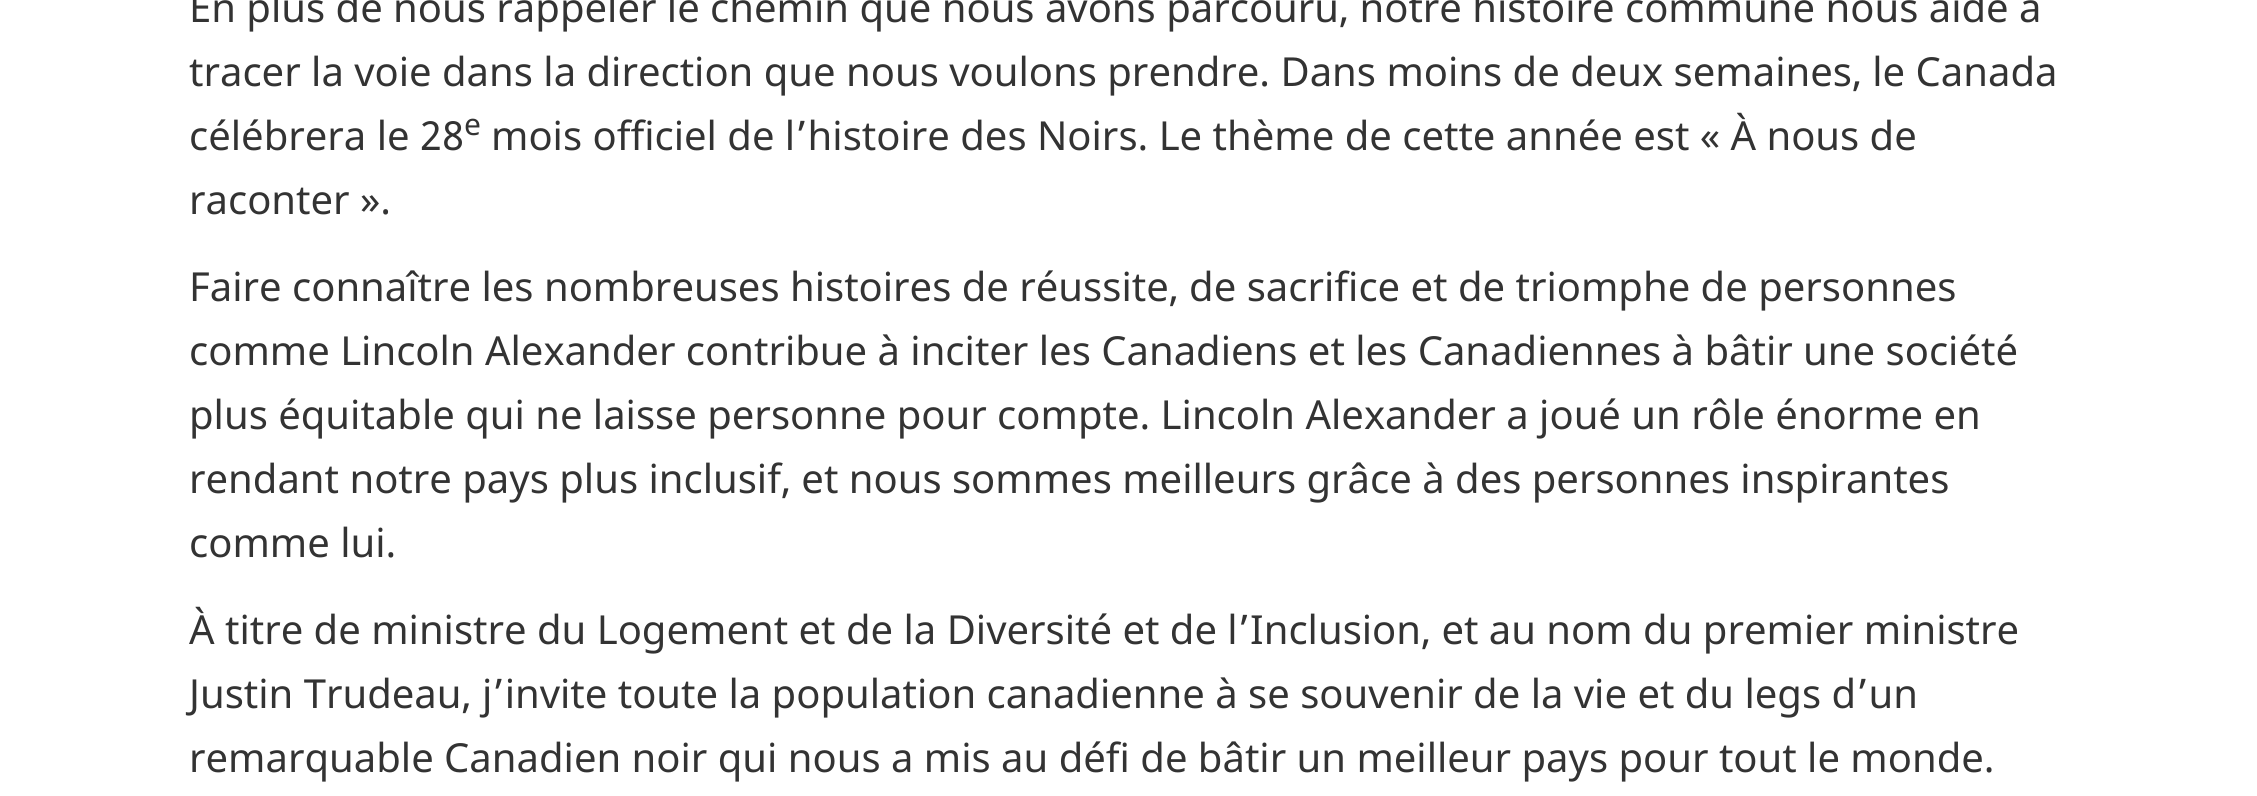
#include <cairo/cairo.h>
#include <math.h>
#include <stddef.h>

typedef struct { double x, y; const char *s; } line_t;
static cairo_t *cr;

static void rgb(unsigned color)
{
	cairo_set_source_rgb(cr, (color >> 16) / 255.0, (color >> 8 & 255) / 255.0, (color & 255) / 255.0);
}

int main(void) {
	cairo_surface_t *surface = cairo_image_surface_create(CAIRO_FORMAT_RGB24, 2257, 796);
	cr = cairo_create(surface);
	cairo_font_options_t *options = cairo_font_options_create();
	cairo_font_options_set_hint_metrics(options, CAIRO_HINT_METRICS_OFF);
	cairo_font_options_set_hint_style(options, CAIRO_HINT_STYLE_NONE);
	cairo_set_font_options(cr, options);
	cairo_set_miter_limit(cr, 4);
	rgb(0xffffff);
	cairo_paint(cr);
	cairo_select_font_face(cr, "Noto Sans", CAIRO_FONT_SLANT_NORMAL, CAIRO_FONT_WEIGHT_NORMAL);
	cairo_set_font_size(cr, 40);
	rgb(0x333333);
	{
		static const line_t items[] = {
			{189, 22, "En plus de nous rappeler le chemin que nous avons parcouru, notre histoire commune nous aide à"},
			{189, 86, "tracer la voie dans la direction que nous voulons prendre. Dans moins de deux semaines, le Canada"},
			{189, 150, "célébrera le 28"},
		};
		for (size_t i = 0; i < sizeof items / sizeof *items; i++) {
			cairo_move_to(cr, items[i].x, items[i].y);
			cairo_show_text(cr, items[i].s);
		}
	}
	cairo_set_font_size(cr, 30);
	cairo_move_to(cr, 464, 135);
	cairo_show_text(cr, "e");
	cairo_set_font_size(cr, 40);
	{
		static const line_t items[] = {
			{491, 150, "mois officiel de l’histoire des Noirs. Le thème de cette année est « À nous de"},
			{189, 214, "raconter »."},
			{189, 301, "Faire connaître les nombreuses histoires de réussite, de sacrifice et de triomphe de personnes"},
			{189, 365, "comme Lincoln Alexander contribue à inciter les Canadiens et les Canadiennes à bâtir une société"},
			{189, 429, "plus équitable qui ne laisse personne pour compte. Lincoln Alexander a joué un rôle énorme en"},
			{189, 493, "rendant notre pays plus inclusif, et nous sommes meilleurs grâce à des personnes inspirantes"},
			{189, 557, "comme lui."},
			{189, 644, "À titre de ministre du Logement et de la Diversité et de l’Inclusion, et au nom du premier ministre"},
			{189, 708, "Justin Trudeau, j’invite toute la population canadienne à se souvenir de la vie et du legs d’un"},
			{189, 772, "remarquable Canadien noir qui nous a mis au défi de bâtir un meilleur pays pour tout le monde."},
		};
		for (size_t i = 0; i < sizeof items / sizeof *items; i++) {
			cairo_move_to(cr, items[i].x, items[i].y);
			cairo_show_text(cr, items[i].s);
		}
	}
	cairo_surface_write_to_png(surface, "page.png");
	cairo_font_options_destroy(options);
	cairo_destroy(cr);
	cairo_surface_destroy(surface);
	return 0;
}
